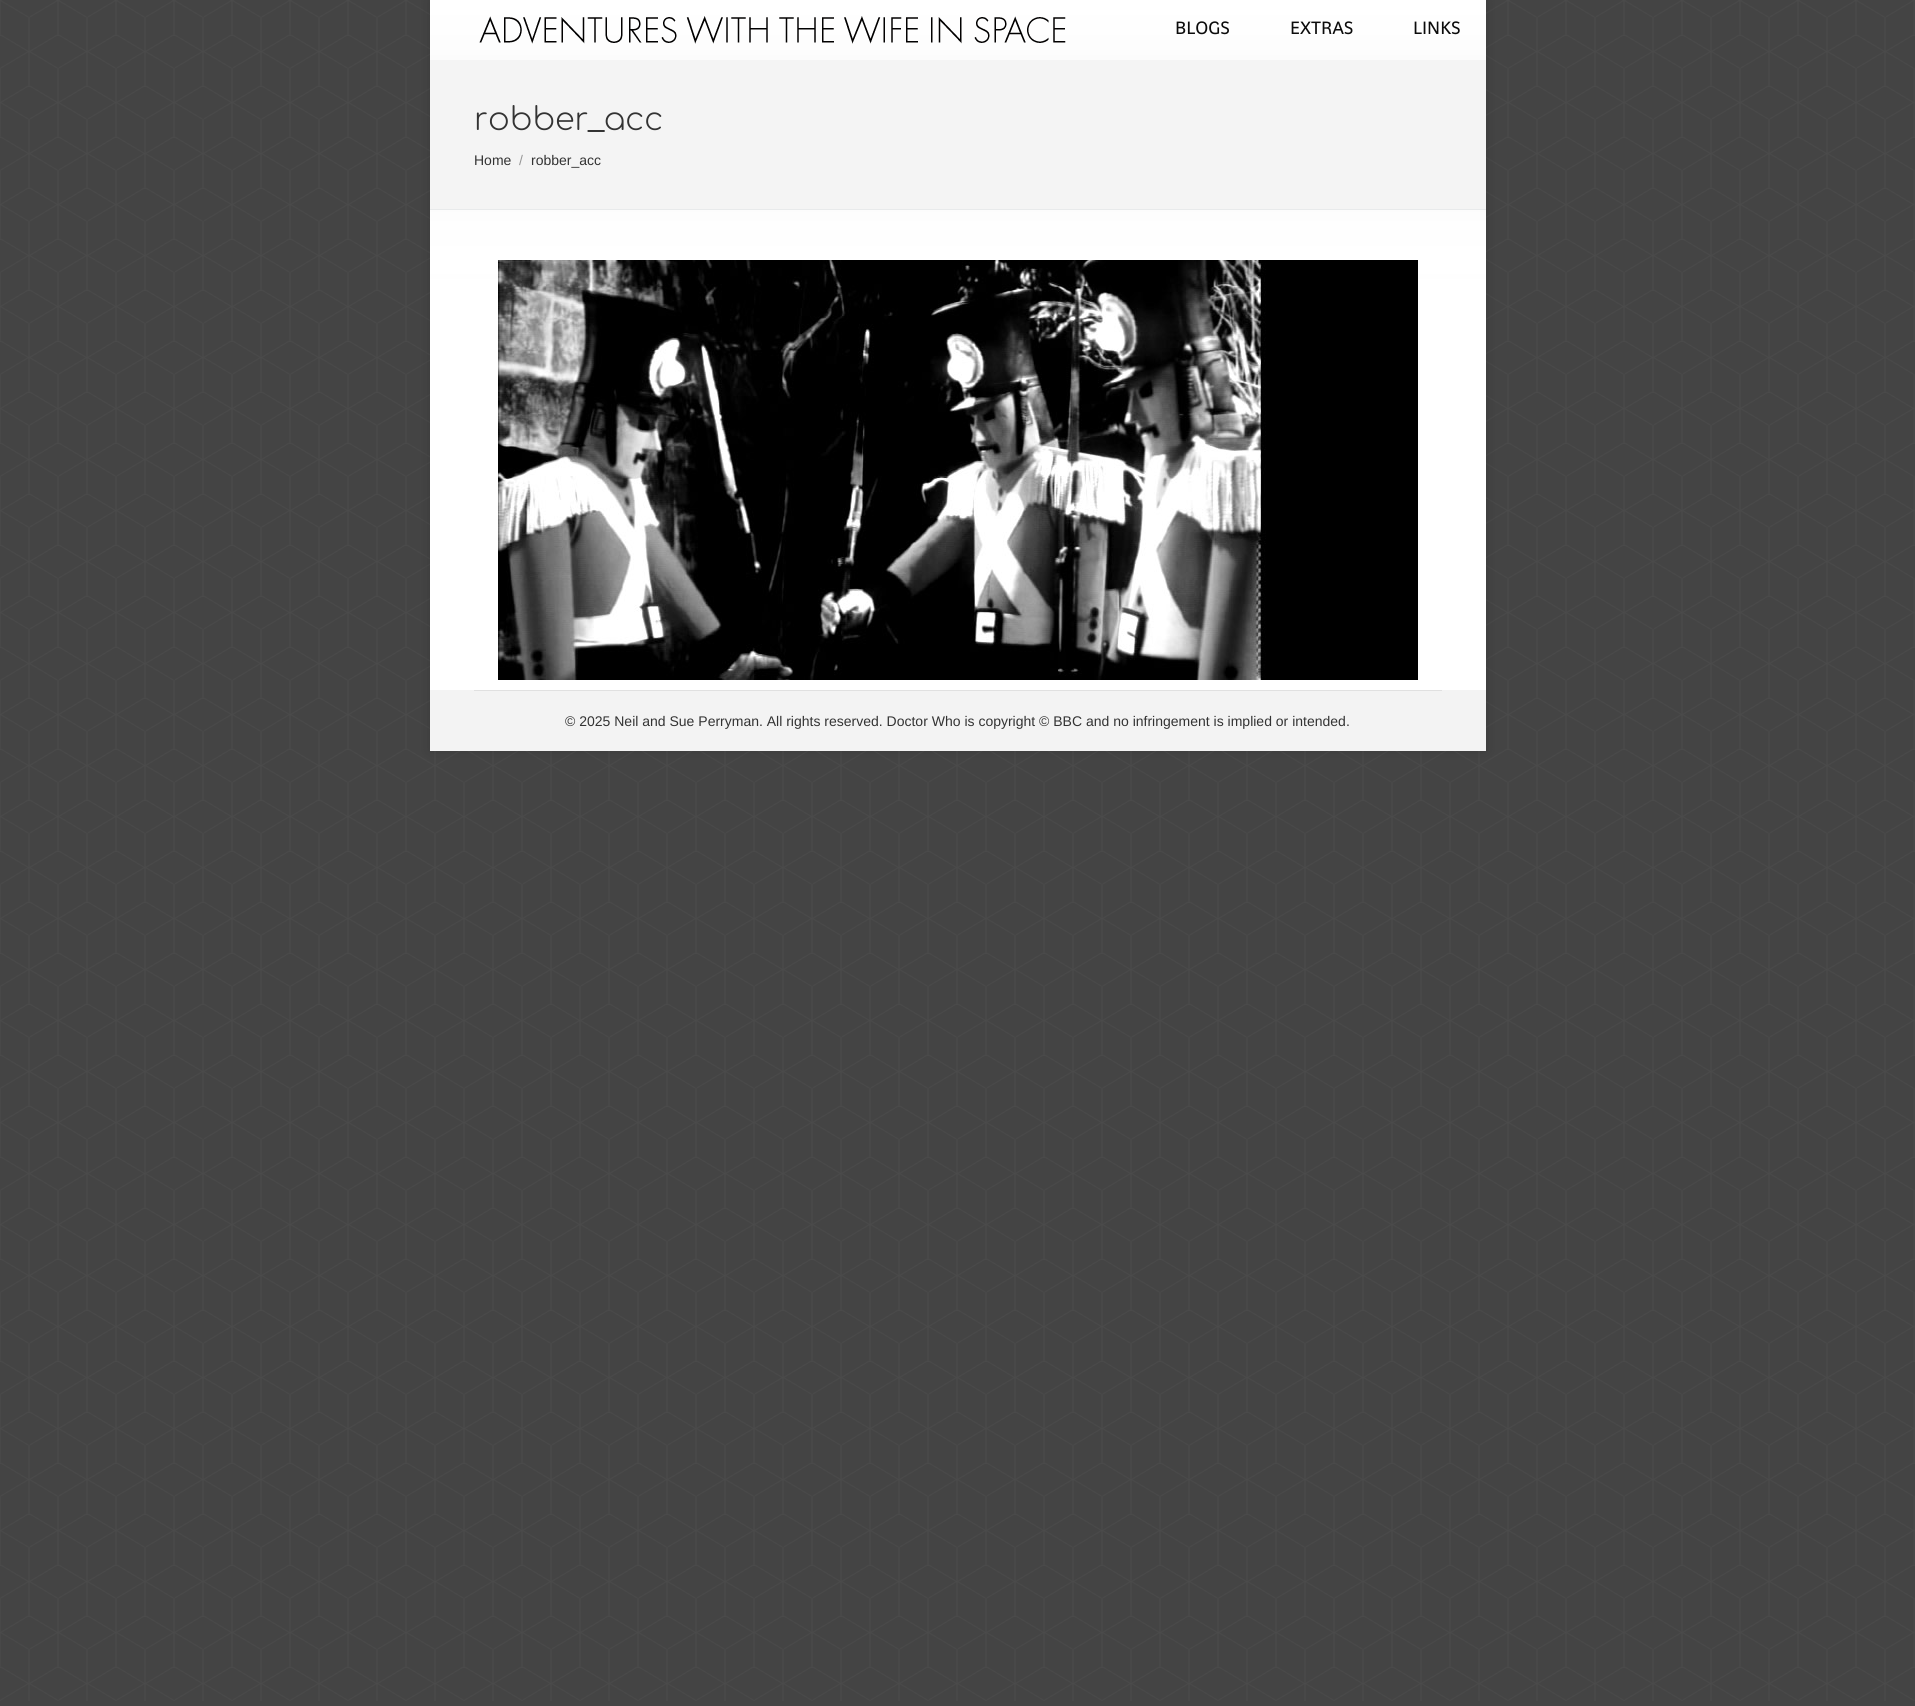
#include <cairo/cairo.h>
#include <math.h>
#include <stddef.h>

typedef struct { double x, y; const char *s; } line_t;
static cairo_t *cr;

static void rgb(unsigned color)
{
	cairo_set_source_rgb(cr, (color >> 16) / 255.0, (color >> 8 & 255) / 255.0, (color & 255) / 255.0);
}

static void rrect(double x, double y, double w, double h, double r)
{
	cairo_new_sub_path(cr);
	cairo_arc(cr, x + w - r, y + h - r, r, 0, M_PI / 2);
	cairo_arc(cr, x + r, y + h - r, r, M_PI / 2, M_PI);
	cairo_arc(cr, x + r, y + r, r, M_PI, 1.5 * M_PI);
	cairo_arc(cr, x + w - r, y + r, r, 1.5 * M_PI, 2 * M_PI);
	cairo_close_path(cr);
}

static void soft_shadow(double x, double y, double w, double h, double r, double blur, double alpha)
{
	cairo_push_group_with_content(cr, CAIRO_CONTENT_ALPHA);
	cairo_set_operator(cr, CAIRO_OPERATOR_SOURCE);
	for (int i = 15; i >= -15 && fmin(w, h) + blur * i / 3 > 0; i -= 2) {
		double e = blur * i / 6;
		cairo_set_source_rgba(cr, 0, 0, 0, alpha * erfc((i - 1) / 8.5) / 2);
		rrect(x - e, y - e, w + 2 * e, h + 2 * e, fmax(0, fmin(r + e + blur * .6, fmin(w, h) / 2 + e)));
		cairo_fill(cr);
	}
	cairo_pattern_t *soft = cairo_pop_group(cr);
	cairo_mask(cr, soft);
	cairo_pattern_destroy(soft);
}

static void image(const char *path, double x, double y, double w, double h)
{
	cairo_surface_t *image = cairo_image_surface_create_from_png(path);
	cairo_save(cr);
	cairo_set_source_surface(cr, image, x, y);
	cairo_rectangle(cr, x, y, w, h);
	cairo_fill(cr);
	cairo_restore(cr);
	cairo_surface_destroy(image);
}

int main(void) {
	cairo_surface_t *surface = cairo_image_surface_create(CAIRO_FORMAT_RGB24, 1915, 1706);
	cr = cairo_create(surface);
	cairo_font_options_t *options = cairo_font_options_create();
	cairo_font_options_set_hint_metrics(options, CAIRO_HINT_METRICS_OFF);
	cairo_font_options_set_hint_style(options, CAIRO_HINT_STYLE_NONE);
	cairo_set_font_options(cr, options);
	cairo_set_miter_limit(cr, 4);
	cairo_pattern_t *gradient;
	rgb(0x444444);
	cairo_paint(cr);
	image("img/1.png", 0, 0, 1915, 1701);
	rgb(0x000000);
	soft_shadow(430, 0, 1056, 751, 0, 6, 0.15);
	gradient = cairo_pattern_create_linear(958, 60, 958, -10);
	cairo_pattern_add_color_stop_rgba(gradient, 0, 0.988, 0.988, 0.988, 1);
	cairo_pattern_add_color_stop_rgba(gradient, 0.14, 0.992, 0.992, 0.992, 1);
	cairo_pattern_add_color_stop_rgba(gradient, 0.29, 0.992, 0.992, 0.992, 1);
	cairo_pattern_add_color_stop_rgba(gradient, 0.43, 0.996, 0.996, 0.996, 1);
	cairo_pattern_add_color_stop_rgba(gradient, 0.57, 0.996, 0.996, 0.996, 1);
	cairo_pattern_add_color_stop_rgba(gradient, 0.71, 1, 1, 1, 1);
	cairo_pattern_add_color_stop_rgba(gradient, 1, 1, 1, 1, 1);
	cairo_set_source(cr, gradient);
	cairo_pattern_destroy(gradient);
	cairo_rectangle(cr, 430, 0, 1056, 60);
	cairo_fill(cr);
	image("img/2.png", 479, 16, 587, 28);
	rgb(0xf4f4f4);
	cairo_rectangle(cr, 430, 60, 1056, 214);
	cairo_fill(cr);
	rgb(0xe8eaeb);
	cairo_rectangle(cr, 430, 209, 1056, 1);
	cairo_fill(cr);
	gradient = cairo_pattern_create_linear(958, 210, 958, 690);
	cairo_pattern_add_color_stop_rgba(gradient, 0, 1, 1, 1, 0.75);
	cairo_pattern_add_color_stop_rgba(gradient, 0.01, 1, 1, 1, 0.8);
	cairo_pattern_add_color_stop_rgba(gradient, 0.02, 1, 1, 1, 0.86);
	cairo_pattern_add_color_stop_rgba(gradient, 0.04, 1, 1, 1, 0.9);
	cairo_pattern_add_color_stop_rgba(gradient, 0.06, 1, 1, 1, 0.94);
	cairo_pattern_add_color_stop_rgba(gradient, 0.1, 1, 1, 1, 0.98);
	cairo_pattern_add_color_stop_rgba(gradient, 0.12, 1, 1, 1, 0.99);
	cairo_pattern_add_color_stop_rgba(gradient, 0.15, 1, 1, 1, 1);
	cairo_set_source(cr, gradient);
	cairo_pattern_destroy(gradient);
	cairo_rectangle(cr, 430, 210, 1056, 480);
	cairo_fill(cr);
	image("img/3.png", 498, 260, 920, 420);
	rgb(0xf3f3f3);
	cairo_rectangle(cr, 430, 690, 1056, 61);
	cairo_fill(cr);
	rgb(0xe0e0e0);
	cairo_rectangle(cr, 474, 690, 968, 1);
	cairo_fill(cr);
	cairo_select_font_face(cr, "Shanti", CAIRO_FONT_SLANT_NORMAL, CAIRO_FONT_WEIGHT_NORMAL);
	cairo_set_font_size(cr, 18);
	rgb(0x0c0c0c);
	{
		static const line_t items[] = {
			{1175, 34, "BLOGS"},
			{1290, 34, "EXTRAS"},
			{1413, 34, "LINKS"},
		};
		for (size_t i = 0; i < sizeof items / sizeof *items; i++) {
			cairo_move_to(cr, items[i].x, items[i].y);
			cairo_show_text(cr, items[i].s);
		}
	}
	cairo_select_font_face(cr, "Comfortaa Light", CAIRO_FONT_SLANT_NORMAL, CAIRO_FONT_WEIGHT_NORMAL);
	cairo_set_font_size(cr, 32);
	rgb(0x333333);
	cairo_move_to(cr, 474, 130);
	cairo_show_text(cr, "robber_acc");
	cairo_select_font_face(cr, "Liberation Sans", CAIRO_FONT_SLANT_NORMAL, CAIRO_FONT_WEIGHT_NORMAL);
	cairo_set_font_size(cr, 14);
	cairo_move_to(cr, 474, 165);
	cairo_show_text(cr, "Home");
	rgb(0x969696);
	cairo_move_to(cr, 519, 165);
	cairo_show_text(cr, "/");
	rgb(0x333333);
	cairo_move_to(cr, 531, 165);
	cairo_show_text(cr, "robber_acc");
	cairo_move_to(cr, 565, 726);
	cairo_show_text(cr, "© 2025 Neil and Sue Perryman. All rights reserved. Doctor Who is copyright © BBC and no infringement is implied or intended.");
	cairo_surface_write_to_png(surface, "page.png");
	cairo_font_options_destroy(options);
	cairo_destroy(cr);
	cairo_surface_destroy(surface);
	return 0;
}
